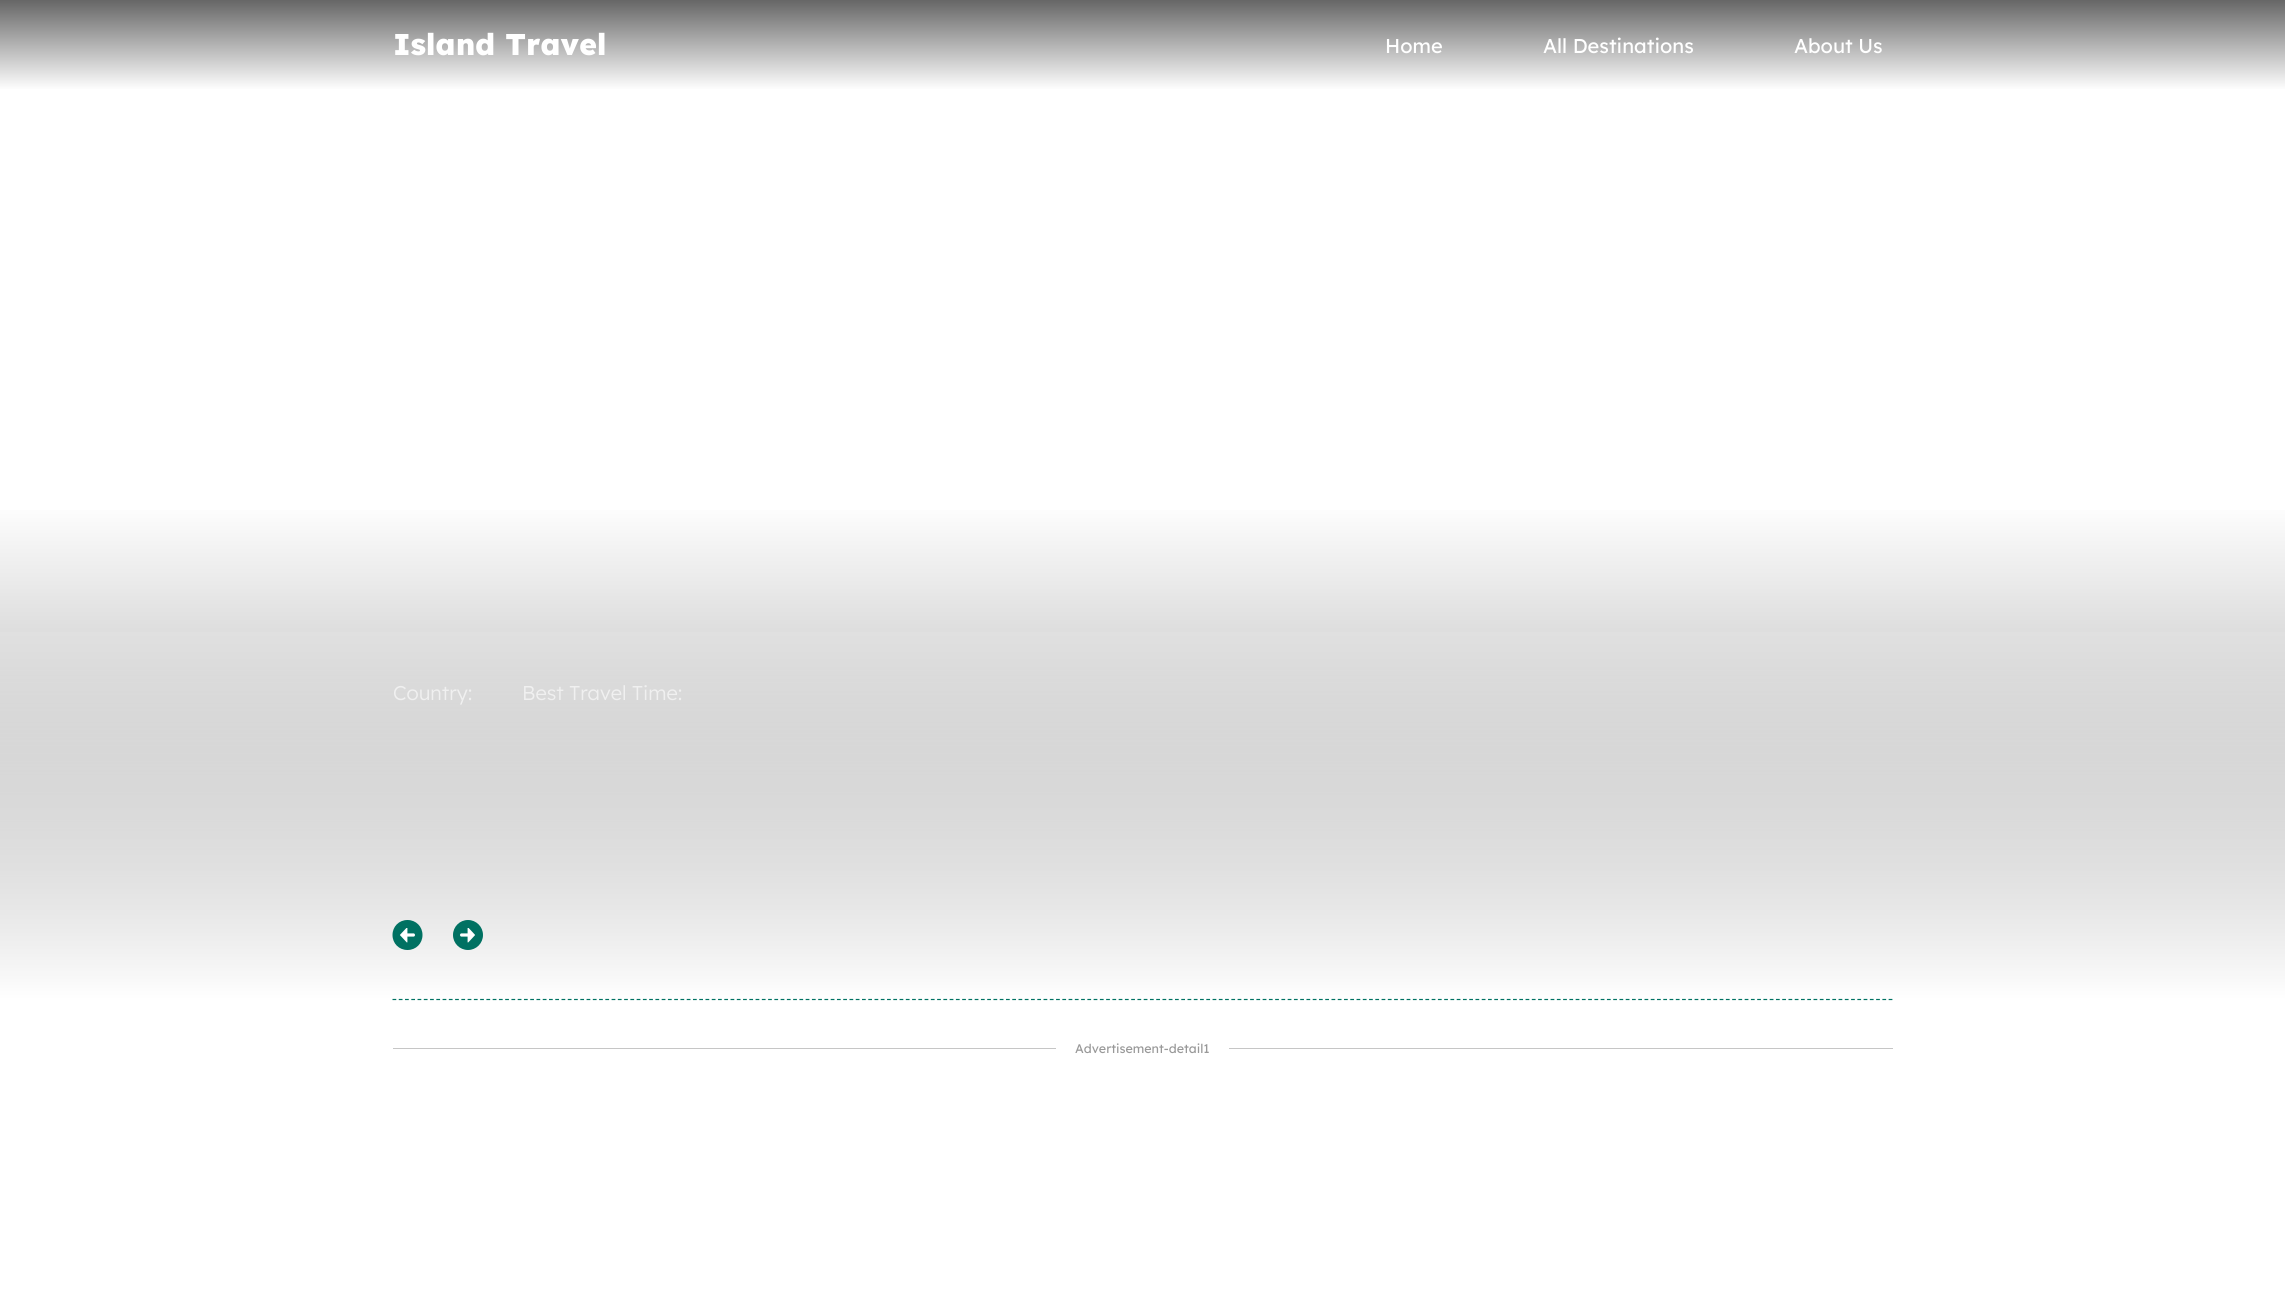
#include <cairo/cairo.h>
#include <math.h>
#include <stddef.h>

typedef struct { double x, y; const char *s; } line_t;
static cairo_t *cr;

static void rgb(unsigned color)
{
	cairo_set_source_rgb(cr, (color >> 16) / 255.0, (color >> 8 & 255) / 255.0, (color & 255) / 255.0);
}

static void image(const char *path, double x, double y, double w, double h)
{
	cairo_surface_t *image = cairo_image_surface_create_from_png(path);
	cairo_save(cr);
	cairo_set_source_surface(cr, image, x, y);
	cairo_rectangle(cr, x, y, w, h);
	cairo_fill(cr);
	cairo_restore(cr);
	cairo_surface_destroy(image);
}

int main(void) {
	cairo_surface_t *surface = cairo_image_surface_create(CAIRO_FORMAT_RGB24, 2285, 1307);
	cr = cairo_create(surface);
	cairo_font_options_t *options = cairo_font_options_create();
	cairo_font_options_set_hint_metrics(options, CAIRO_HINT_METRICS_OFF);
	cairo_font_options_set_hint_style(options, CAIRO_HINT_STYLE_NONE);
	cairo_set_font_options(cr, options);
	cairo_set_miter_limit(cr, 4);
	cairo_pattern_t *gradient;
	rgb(0xffffff);
	cairo_paint(cr);
	gradient = cairo_pattern_create_linear(1143, 0, 1143, 90);
	cairo_pattern_add_color_stop_rgba(gradient, 0, 0.4, 0.4, 0.4, 1);
	cairo_pattern_add_color_stop_rgba(gradient, 0.5, 0.702, 0.702, 0.702, 1);
	cairo_pattern_add_color_stop_rgba(gradient, 1, 1, 1, 1, 1);
	cairo_set_source(cr, gradient);
	cairo_pattern_destroy(gradient);
	cairo_rectangle(cr, 0, 0, 2285, 89);
	cairo_fill(cr);
	gradient = cairo_pattern_create_linear(1143, 0, 1143, 1000);
	cairo_pattern_add_color_stop_rgba(gradient, 0, 1, 1, 1, 1);
	cairo_pattern_add_color_stop_rgba(gradient, 0.5, 1, 1, 1, 1);
	cairo_pattern_add_color_stop_rgba(gradient, 1, 0.502, 0.502, 0.502, 1);
	cairo_set_source(cr, gradient);
	cairo_pattern_destroy(gradient);
	cairo_rectangle(cr, 0, 510, 2285, 488);
	cairo_fill(cr);
	gradient = cairo_pattern_create_linear(1143, 600, 1143, 1000);
	cairo_pattern_add_color_stop_rgba(gradient, 0, 1, 1, 1, 0);
	cairo_pattern_add_color_stop_rgba(gradient, 1, 1, 1, 1, 1);
	cairo_set_source(cr, gradient);
	cairo_pattern_destroy(gradient);
	cairo_rectangle(cr, 0, 632, 2285, 366);
	cairo_fill(cr);
	rgb(0x007162);
	cairo_new_path(cr);
	cairo_move_to(cr, 407.5, 950);
	cairo_curve_to(cr, 399, 950, 392.5, 943.5, 392.5, 935);
	cairo_curve_to(cr, 392.5, 926.5, 399, 920, 407.5, 920);
	cairo_curve_to(cr, 416, 920, 422.5, 926.5, 422.5, 935);
	cairo_curve_to(cr, 422.5, 943.5, 416, 950, 407.5, 950);
	cairo_close_path(cr);
	cairo_fill(cr);
	image("img/1.png", 400, 928, 15, 15);
	cairo_arc(cr, 468, 935, 15, 0, 2 * M_PI);
	cairo_fill(cr);
	image("img/2.png", 460, 928, 15, 15);
	cairo_new_path(cr);
	cairo_move_to(cr, 392.5, 999.5);
	cairo_line_to(cr, 1892.5, 999.5);
	cairo_set_line_width(cr, 1.2);
	cairo_set_dash(cr, (double[]){3.75, 2.51}, 2, 0);
	cairo_stroke(cr);
	rgb(0xc6c6c6);
	cairo_rectangle(cr, 393, 1048, 663, 1);
	cairo_fill(cr);
	cairo_rectangle(cr, 1229, 1048, 664, 1);
	cairo_fill(cr);
	cairo_select_font_face(cr, "Lexend ExtraBold", CAIRO_FONT_SLANT_NORMAL, CAIRO_FONT_WEIGHT_NORMAL);
	cairo_set_font_size(cr, 30);
	rgb(0xffffff);
	cairo_move_to(cr, 393, 55);
	cairo_show_text(cr, "Island Travel");
	cairo_select_font_face(cr, "Lexend", CAIRO_FONT_SLANT_NORMAL, CAIRO_FONT_WEIGHT_NORMAL);
	cairo_set_font_size(cr, 20);
	{
		static const line_t items[] = {
			{1385, 53, "Home"},
			{1543, 53, "All Destinations"},
			{1794, 53, "About Us"},
		};
		for (size_t i = 0; i < sizeof items / sizeof *items; i++) {
			cairo_move_to(cr, items[i].x, items[i].y);
			cairo_show_text(cr, items[i].s);
		}
	}
	cairo_select_font_face(cr, "Lexend Light", CAIRO_FONT_SLANT_NORMAL, CAIRO_FONT_WEIGHT_NORMAL);
	rgb(0xf0f0f0);
	cairo_move_to(cr, 393, 700);
	cairo_show_text(cr, "Country:");
	cairo_move_to(cr, 522, 700);
	cairo_show_text(cr, "Best Travel Time:");
	cairo_select_font_face(cr, "Lexend", CAIRO_FONT_SLANT_NORMAL, CAIRO_FONT_WEIGHT_NORMAL);
	cairo_set_font_size(cr, 12.5);
	rgb(0x999999);
	cairo_move_to(cr, 1075, 1053);
	cairo_show_text(cr, "Advertisement-detail1");
	cairo_surface_write_to_png(surface, "page.png");
	cairo_font_options_destroy(options);
	cairo_destroy(cr);
	cairo_surface_destroy(surface);
	return 0;
}
